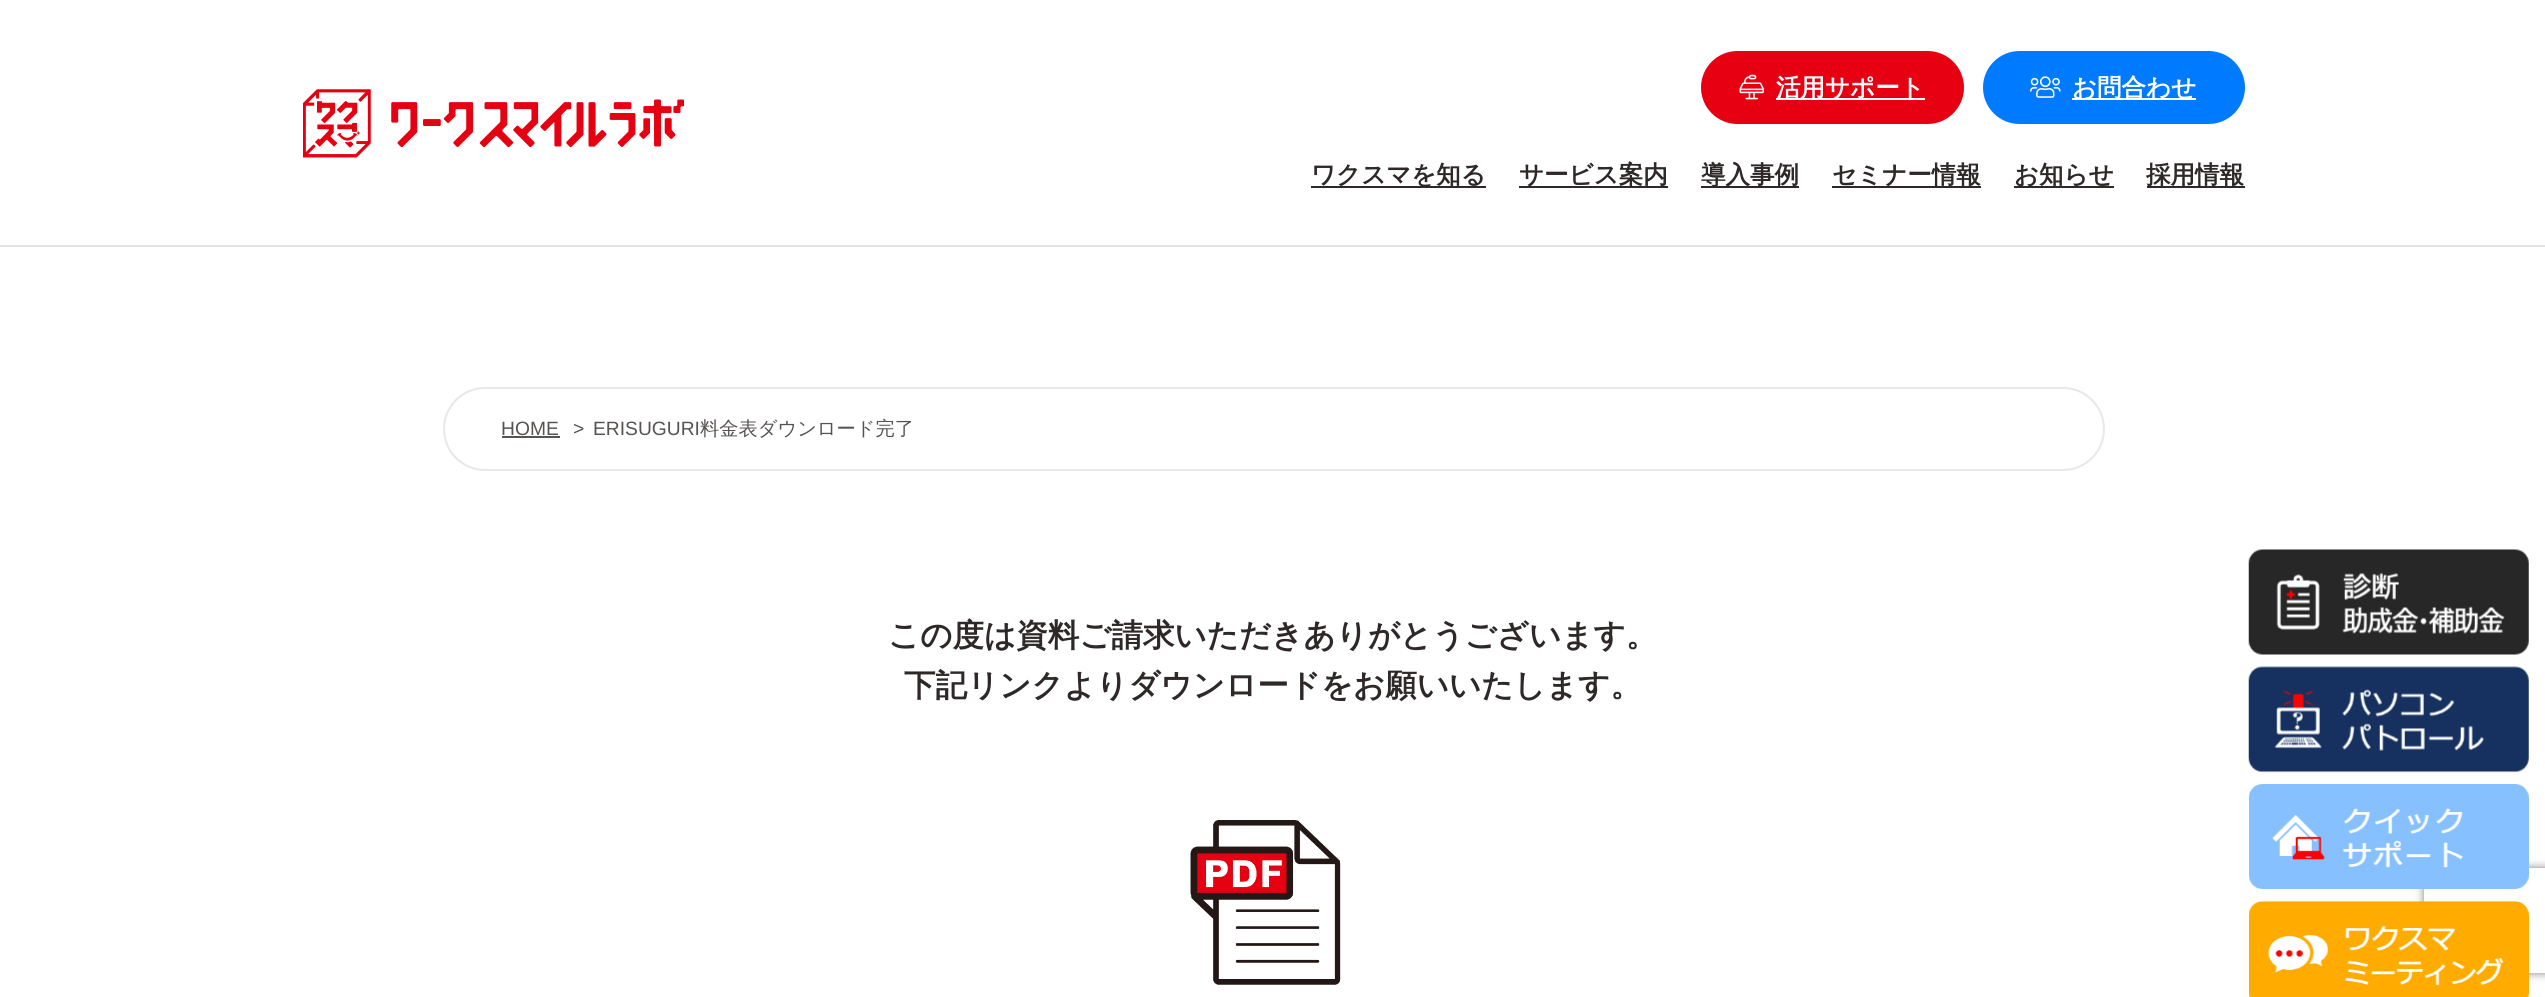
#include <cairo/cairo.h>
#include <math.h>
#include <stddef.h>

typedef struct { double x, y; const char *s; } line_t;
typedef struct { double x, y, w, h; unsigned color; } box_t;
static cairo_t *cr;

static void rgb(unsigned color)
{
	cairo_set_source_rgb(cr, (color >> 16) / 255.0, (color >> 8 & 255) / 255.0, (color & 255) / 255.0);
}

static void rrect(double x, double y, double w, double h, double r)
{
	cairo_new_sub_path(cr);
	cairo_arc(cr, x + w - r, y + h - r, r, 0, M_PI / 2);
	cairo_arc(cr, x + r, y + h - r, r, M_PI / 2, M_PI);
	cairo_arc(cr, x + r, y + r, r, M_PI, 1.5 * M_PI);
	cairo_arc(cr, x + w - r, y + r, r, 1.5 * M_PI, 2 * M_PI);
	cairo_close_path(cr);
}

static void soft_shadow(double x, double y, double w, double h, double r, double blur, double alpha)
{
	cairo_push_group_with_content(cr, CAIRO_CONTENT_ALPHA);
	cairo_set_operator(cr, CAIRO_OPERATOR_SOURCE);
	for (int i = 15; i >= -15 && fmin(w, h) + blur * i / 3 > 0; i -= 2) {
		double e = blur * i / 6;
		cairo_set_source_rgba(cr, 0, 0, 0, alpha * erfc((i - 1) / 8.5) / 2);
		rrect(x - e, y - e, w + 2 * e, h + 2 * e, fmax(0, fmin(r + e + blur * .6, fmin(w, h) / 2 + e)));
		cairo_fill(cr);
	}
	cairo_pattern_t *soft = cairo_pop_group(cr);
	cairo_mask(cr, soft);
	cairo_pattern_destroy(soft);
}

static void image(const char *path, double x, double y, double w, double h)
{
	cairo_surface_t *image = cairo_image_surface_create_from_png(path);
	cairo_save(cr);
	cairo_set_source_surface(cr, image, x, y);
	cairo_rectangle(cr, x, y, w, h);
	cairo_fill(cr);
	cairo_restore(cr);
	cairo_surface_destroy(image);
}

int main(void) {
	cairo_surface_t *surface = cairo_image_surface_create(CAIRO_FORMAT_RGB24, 2545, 997);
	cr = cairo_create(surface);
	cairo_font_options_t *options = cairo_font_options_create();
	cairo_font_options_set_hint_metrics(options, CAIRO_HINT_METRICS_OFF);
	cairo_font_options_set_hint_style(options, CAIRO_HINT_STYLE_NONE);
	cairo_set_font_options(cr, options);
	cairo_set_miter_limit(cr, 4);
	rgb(0xffffff);
	cairo_paint(cr);
	rgb(0xe4e1e1);
	cairo_rectangle(cr, 0, 245, 2545, 2);
	cairo_fill(cr);
	image("img/1.png", 303, 89, 381, 69);
	rgb(0xe60012);
	rrect(1701, 51, 263, 73, 36.5);
	cairo_fill(cr);
	image("img/2.png", 1739, 74, 25, 26);
	rgb(0xffffff);
	cairo_rectangle(cr, 1776, 98, 149, 2);
	cairo_fill(cr);
	rgb(0x007aff);
	rrect(1983, 51, 262, 73, 36.5);
	cairo_fill(cr);
	image("img/3.png", 2030, 76, 31, 22);
	{
		static const box_t items[] = {
			{2072, 98, 124, 2, 0xffffff},
			{1311, 186, 175, 2, 0x2e2828},
			{1519, 186, 149, 2, 0x2e2828},
			{1701, 186, 98, 2, 0x2e2828},
			{1832, 186, 149, 2, 0x2e2828},
			{2014, 186, 100, 2, 0x2e2828},
			{2147, 186, 98, 2, 0x2e2828},
		};
		for (size_t i = 0; i < sizeof items / sizeof *items; i++) {
			rgb(items[i].color);
			cairo_rectangle(cr, items[i].x, items[i].y, items[i].w, items[i].h);
			cairo_fill(cr);
		}
	}
	rrect(444, 388, 1660, 82, 41);
	rgb(0xe9e7e7);
	cairo_stroke(cr);
	rgb(0x585353);
	cairo_rectangle(cr, 502, 436, 58, 2);
	cairo_fill(cr);
	image("img/4.png", 2248, 549, 281, 106);
	image("img/5.png", 2248, 666, 281, 107);
	cairo_save(cr);
	cairo_set_fill_rule(cr, CAIRO_FILL_RULE_EVEN_ODD);
	cairo_new_path(cr);
	cairo_move_to(cr, 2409, 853);
	cairo_line_to(cr, 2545, 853);
	cairo_line_to(cr, 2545, 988);
	cairo_line_to(cr, 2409, 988);
	cairo_close_path(cr);
	cairo_move_to(cr, 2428, 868);
	cairo_line_to(cr, 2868, 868);
	cairo_curve_to(cr, 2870, 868, 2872, 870, 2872, 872);
	cairo_line_to(cr, 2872, 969);
	cairo_curve_to(cr, 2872, 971, 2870, 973, 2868, 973);
	cairo_line_to(cr, 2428, 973);
	cairo_curve_to(cr, 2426, 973, 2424, 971, 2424, 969);
	cairo_line_to(cr, 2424, 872);
	cairo_curve_to(cr, 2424, 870, 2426, 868, 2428, 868);
	cairo_close_path(cr);
	cairo_clip(cr);
	rgb(0x808080);
	soft_shadow(2424, 868, 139, 105, 4, 4.5, 1);
	cairo_restore(cr);
	image("img/6.png", 2249, 784, 280, 105);
	image("img/7.png", 2249, 901, 280, 96);
	image("img/8.png", 1190, 820, 151, 165);
	cairo_select_font_face(cr, "WenQuanYi Zen Hei", CAIRO_FONT_SLANT_NORMAL, CAIRO_FONT_WEIGHT_BOLD);
	cairo_set_font_size(cr, 24.5);
	rgb(0xffffff);
	cairo_move_to(cr, 1776, 96);
	cairo_show_text(cr, "活用サポート");
	cairo_move_to(cr, 2072, 96);
	cairo_show_text(cr, "お問合わせ");
	rgb(0x2e2828);
	{
		static const line_t items[] = {
			{1311, 183, "ワクスマを知る"},
			{1519, 183, "サービス案内"},
			{1701, 183, "導入事例"},
			{1832, 183, "セミナー情報"},
			{2014, 183, "お知らせ"},
			{2146, 183, "採用情報"},
		};
		for (size_t i = 0; i < sizeof items / sizeof *items; i++) {
			cairo_move_to(cr, items[i].x, items[i].y);
			cairo_show_text(cr, items[i].s);
		}
	}
	cairo_select_font_face(cr, "Liberation Sans", CAIRO_FONT_SLANT_NORMAL, CAIRO_FONT_WEIGHT_NORMAL);
	cairo_set_font_size(cr, 19.25);
	rgb(0x585353);
	{
		static const line_t items[] = {
			{501, 435, "HOME"},
			{573, 435, ">"},
			{593, 435, "ERISUGURI"},
		};
		for (size_t i = 0; i < sizeof items / sizeof *items; i++) {
			cairo_move_to(cr, items[i].x, items[i].y);
			cairo_show_text(cr, items[i].s);
		}
	}
	cairo_select_font_face(cr, "WenQuanYi Zen Hei Medium", CAIRO_FONT_SLANT_NORMAL, CAIRO_FONT_WEIGHT_NORMAL);
	cairo_move_to(cr, 700, 435);
	cairo_show_text(cr, "料金表ダウンロード完了");
	cairo_select_font_face(cr, "WenQuanYi Zen Hei", CAIRO_FONT_SLANT_NORMAL, CAIRO_FONT_WEIGHT_BOLD);
	cairo_set_font_size(cr, 31.5);
	rgb(0x2e2828);
	cairo_move_to(cr, 888, 646);
	cairo_show_text(cr, "この度は資料ご請求いただきありがとうございます。");
	cairo_move_to(cr, 904, 696);
	cairo_show_text(cr, "下記リンクよりダウンロードをお願いいたします。");
	cairo_surface_write_to_png(surface, "page.png");
	cairo_font_options_destroy(options);
	cairo_destroy(cr);
	cairo_surface_destroy(surface);
	return 0;
}
